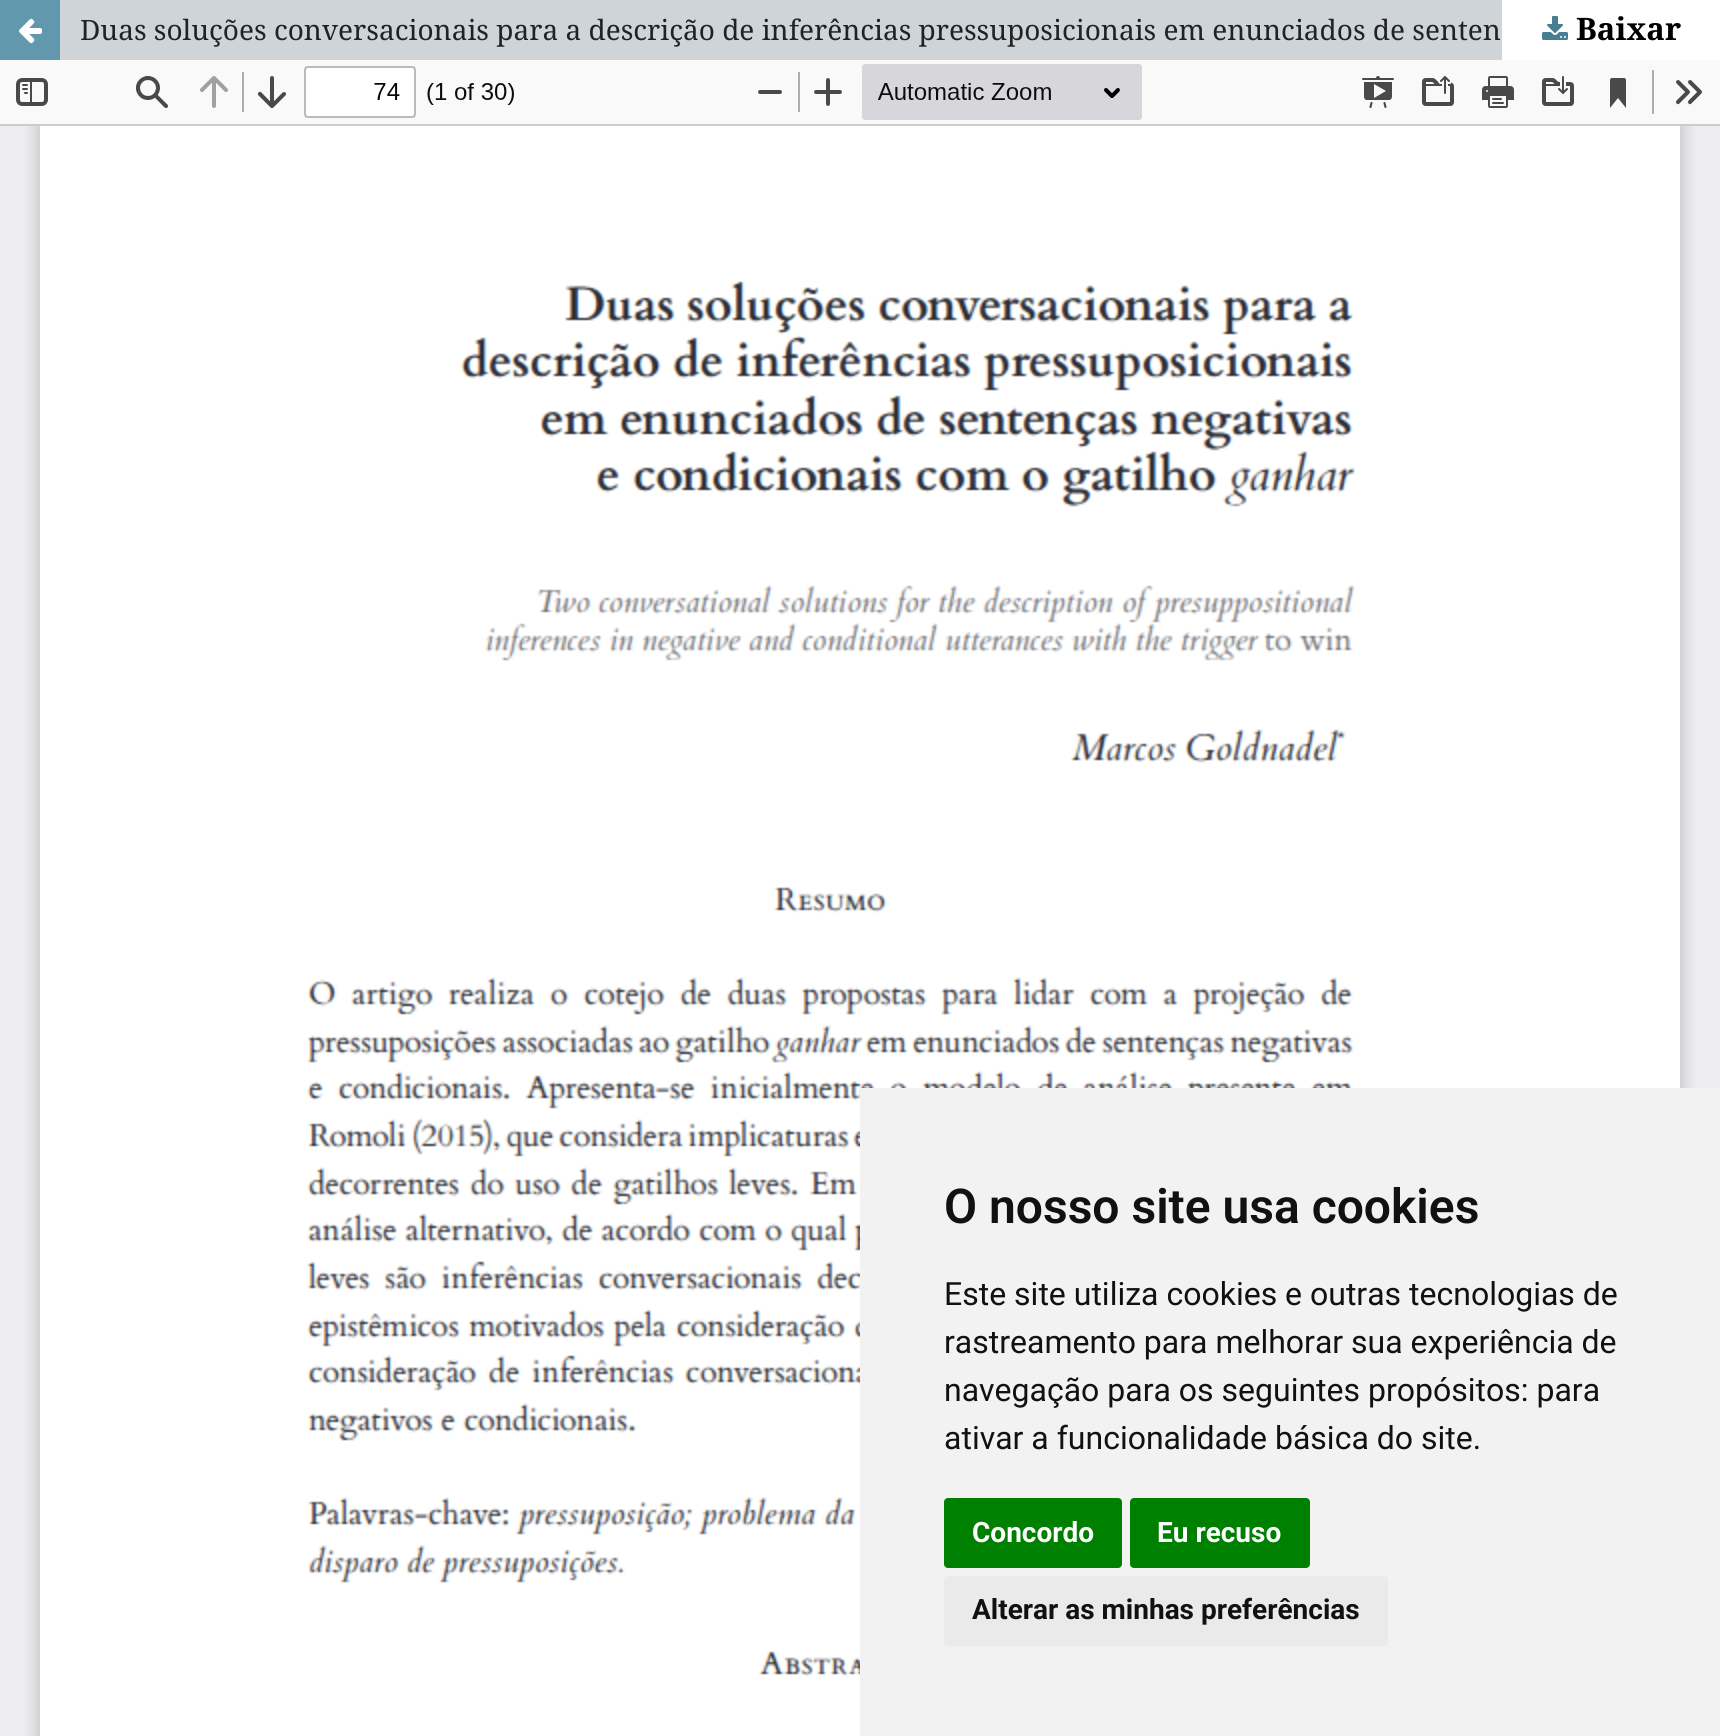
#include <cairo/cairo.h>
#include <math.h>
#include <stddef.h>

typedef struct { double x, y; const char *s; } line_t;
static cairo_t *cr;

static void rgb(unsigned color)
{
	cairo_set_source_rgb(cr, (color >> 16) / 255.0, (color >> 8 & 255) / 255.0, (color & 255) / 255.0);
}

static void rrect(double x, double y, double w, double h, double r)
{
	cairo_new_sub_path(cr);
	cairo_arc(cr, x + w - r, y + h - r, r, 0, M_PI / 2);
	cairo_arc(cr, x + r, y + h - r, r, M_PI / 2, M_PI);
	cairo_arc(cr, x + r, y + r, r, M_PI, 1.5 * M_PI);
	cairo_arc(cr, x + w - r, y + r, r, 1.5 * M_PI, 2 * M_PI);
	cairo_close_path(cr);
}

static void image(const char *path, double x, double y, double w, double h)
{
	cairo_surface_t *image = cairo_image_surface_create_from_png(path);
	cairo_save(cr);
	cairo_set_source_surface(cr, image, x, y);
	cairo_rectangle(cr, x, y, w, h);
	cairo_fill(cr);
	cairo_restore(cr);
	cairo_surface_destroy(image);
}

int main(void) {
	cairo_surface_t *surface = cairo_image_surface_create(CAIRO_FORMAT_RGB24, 1720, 1736);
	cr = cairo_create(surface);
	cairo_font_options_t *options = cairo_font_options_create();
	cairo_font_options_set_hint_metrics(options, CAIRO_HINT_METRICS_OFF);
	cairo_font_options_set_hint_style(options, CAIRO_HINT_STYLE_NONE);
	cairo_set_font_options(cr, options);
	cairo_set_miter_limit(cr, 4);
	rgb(0xffffff);
	cairo_paint(cr);
	rgb(0xcfd4d9);
	cairo_rectangle(cr, 60, 0, 1442, 60);
	cairo_fill(cr);
	rgb(0x6298ae);
	cairo_rectangle(cr, 0, 0, 60, 60);
	cairo_fill(cr);
	image("img/1.png", 19, 18, 23, 26);
	image("img/2.png", 1542, 16, 26, 24);
	image("img/3.png", 0, 60, 1720, 1676);
	rgb(0xf2f2f2);
	cairo_rectangle(cr, 860, 1088, 860, 648);
	cairo_fill(cr);
	rgb(0x008000);
	rrect(944, 1498, 178, 70, 4);
	cairo_fill(cr);
	rrect(1130, 1498, 180, 70, 4);
	cairo_fill(cr);
	rgb(0xeaeaea);
	rrect(944, 1576, 444, 70, 4);
	cairo_fill(cr);
	cairo_select_font_face(cr, "Noto Serif", CAIRO_FONT_SLANT_NORMAL, CAIRO_FONT_WEIGHT_NORMAL);
	cairo_set_font_size(cr, 28);
	rgb(0x212223);
	cairo_move_to(cr, 80, 40);
	cairo_show_text(cr, "Duas soluções conversacionais para a descrição de inferências pressuposicionais em enunciados de senten");
	cairo_select_font_face(cr, "Noto Serif", CAIRO_FONT_SLANT_NORMAL, CAIRO_FONT_WEIGHT_BOLD);
	cairo_set_font_size(cr, 31);
	rgb(0x000000);
	cairo_move_to(cr, 1576, 40);
	cairo_show_text(cr, "Baixar");
	cairo_select_font_face(cr, "Roboto SemiBold", CAIRO_FONT_SLANT_NORMAL, CAIRO_FONT_WEIGHT_NORMAL);
	cairo_set_font_size(cr, 48);
	rgb(0x111111);
	cairo_move_to(cr, 944, 1223);
	cairo_show_text(cr, "O nosso site usa cookies");
	cairo_select_font_face(cr, "Roboto", CAIRO_FONT_SLANT_NORMAL, CAIRO_FONT_WEIGHT_NORMAL);
	cairo_set_font_size(cr, 32);
	{
		static const line_t items[] = {
			{944, 1305, "Este site utiliza cookies e outras tecnologias de"},
			{944, 1353, "rastreamento para melhorar sua experiência de"},
			{944, 1401, "navegação para os seguintes propósitos: para"},
			{944, 1449, "ativar a funcionalidade básica do site."},
		};
		for (size_t i = 0; i < sizeof items / sizeof *items; i++) {
			cairo_move_to(cr, items[i].x, items[i].y);
			cairo_show_text(cr, items[i].s);
		}
	}
	cairo_select_font_face(cr, "Roboto", CAIRO_FONT_SLANT_NORMAL, CAIRO_FONT_WEIGHT_BOLD);
	cairo_set_font_size(cr, 28);
	rgb(0xffffff);
	cairo_move_to(cr, 972, 1542);
	cairo_show_text(cr, "Concordo");
	cairo_move_to(cr, 1157, 1542);
	cairo_show_text(cr, "Eu recuso");
	rgb(0x111111);
	cairo_move_to(cr, 972, 1619);
	cairo_show_text(cr, "Alterar as minhas preferências");
	cairo_surface_write_to_png(surface, "page.png");
	cairo_font_options_destroy(options);
	cairo_destroy(cr);
	cairo_surface_destroy(surface);
	return 0;
}
